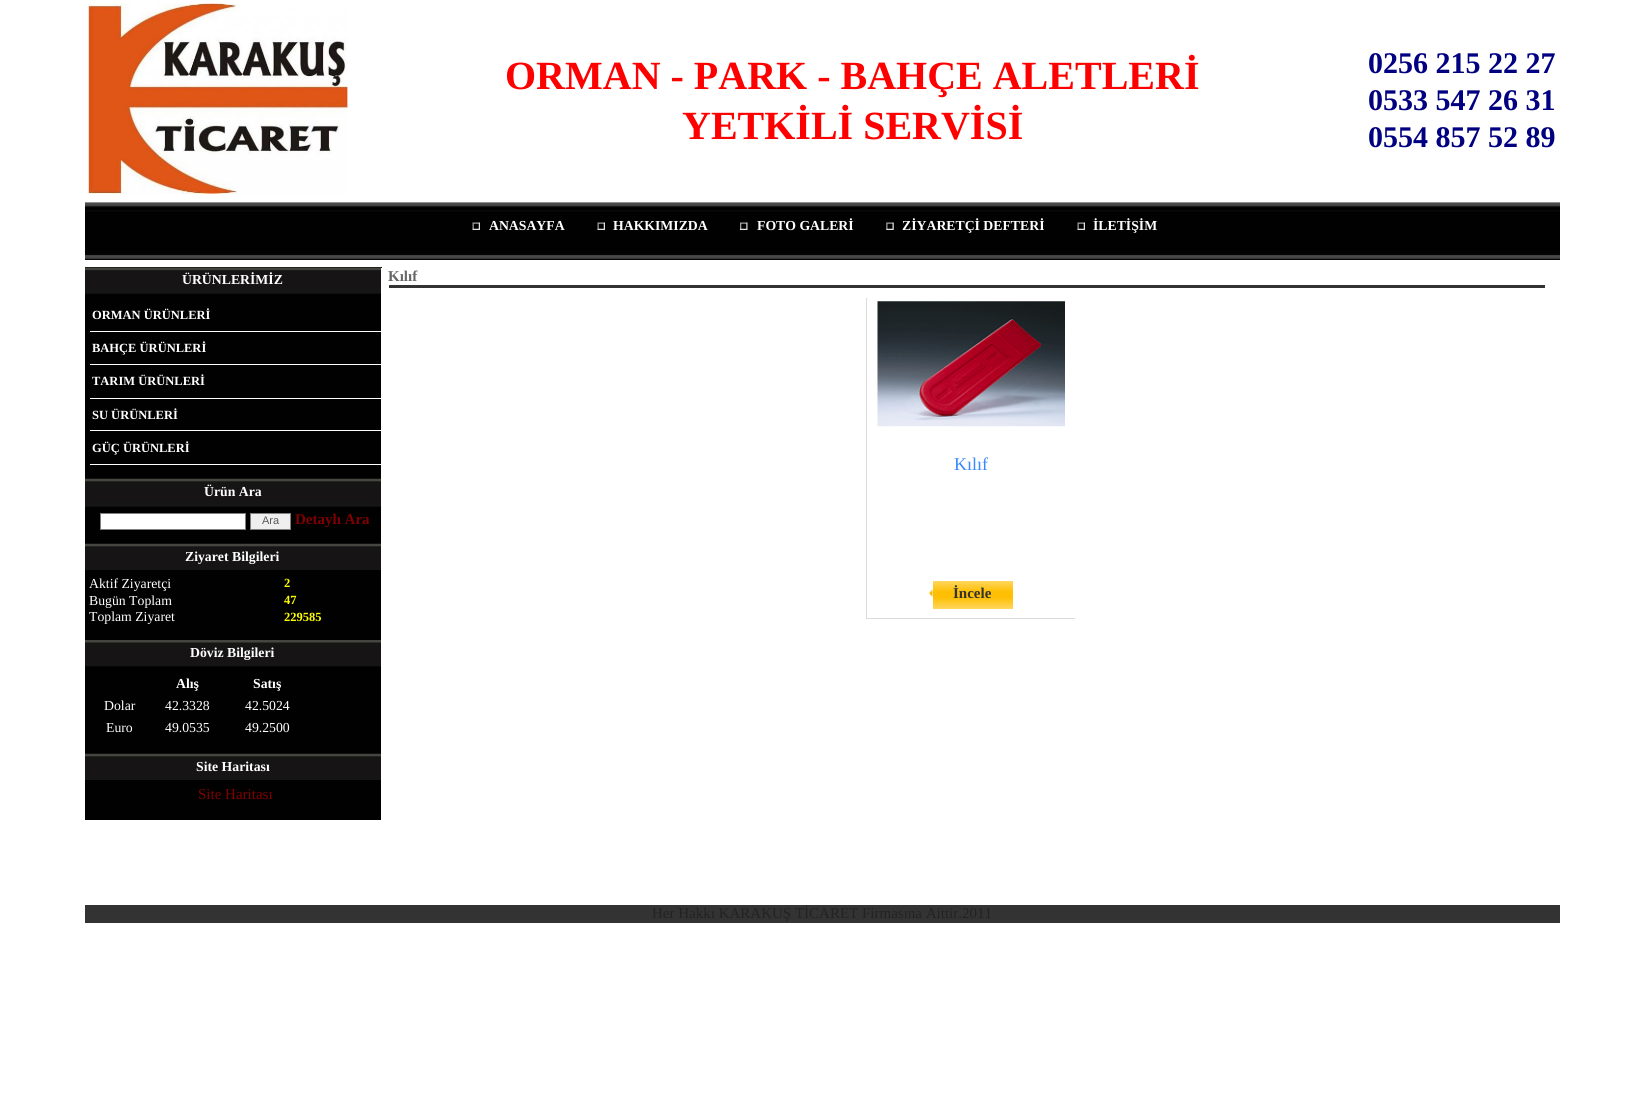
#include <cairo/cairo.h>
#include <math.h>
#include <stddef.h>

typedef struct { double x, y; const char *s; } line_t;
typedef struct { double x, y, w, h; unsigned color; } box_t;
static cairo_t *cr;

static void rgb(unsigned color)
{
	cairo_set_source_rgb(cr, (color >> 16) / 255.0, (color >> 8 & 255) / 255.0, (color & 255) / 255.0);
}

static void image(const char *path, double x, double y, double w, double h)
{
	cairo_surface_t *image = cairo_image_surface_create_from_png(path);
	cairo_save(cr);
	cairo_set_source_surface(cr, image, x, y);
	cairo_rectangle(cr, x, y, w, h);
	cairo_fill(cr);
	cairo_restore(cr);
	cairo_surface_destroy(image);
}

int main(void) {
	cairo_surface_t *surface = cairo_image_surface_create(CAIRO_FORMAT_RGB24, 1643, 1115);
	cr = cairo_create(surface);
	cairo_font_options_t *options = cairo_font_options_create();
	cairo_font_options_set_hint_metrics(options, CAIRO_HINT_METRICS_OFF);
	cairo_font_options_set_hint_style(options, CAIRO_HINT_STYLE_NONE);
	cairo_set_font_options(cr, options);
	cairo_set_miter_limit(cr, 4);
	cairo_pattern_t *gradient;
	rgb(0xffffff);
	cairo_paint(cr);
	image("img/1.png", 88, 3, 260, 191);
	image("img/2.png", 85, 202, 1475, 58);
	image("img/3.png", 472, 222, 8, 8);
	image("img/3.png", 597, 222, 8, 8);
	image("img/4.png", 740, 222, 8, 8);
	image("img/5.png", 886, 222, 8, 8);
	image("img/6.png", 1077, 222, 8, 8);
	rgb(0x010101);
	cairo_rectangle(cr, 85, 267, 297, 553);
	cairo_fill(cr);
	image("img/7.png", 85, 267, 297, 27);
	{
		static const box_t items[] = {
			{90, 331, 291, 1, 0xffffff},
			{90, 364, 291, 1, 0xffffff},
			{90, 398, 291, 1, 0xffffff},
			{90, 430, 291, 1, 0xffffff},
			{90, 464, 291, 1, 0xffffff},
		};
		for (size_t i = 0; i < sizeof items / sizeof *items; i++) {
			rgb(items[i].color);
			cairo_rectangle(cr, items[i].x, items[i].y, items[i].w, items[i].h);
			cairo_fill(cr);
		}
	}
	image("img/8.png", 85, 478, 296, 29);
	cairo_rectangle(cr, 100.5, 513.5, 145, 16);
	cairo_fill_preserve(cr);
	rgb(0x808080);
	cairo_set_line_width(cr, 1);
	cairo_stroke(cr);
	rgb(0xefefef);
	cairo_rectangle(cr, 250.5, 513.5, 40, 16);
	cairo_fill_preserve(cr);
	rgb(0x808080);
	cairo_stroke(cr);
	image("img/9.png", 85, 543, 296, 27);
	image("img/10.png", 85, 640, 296, 27);
	image("img/11.png", 85, 753, 296, 27);
	{
		static const box_t items[] = {
			{381, 268, 1, 552, 0xffffff},
			{389, 285, 1156, 3, 0x333333},
			{866, 618, 209, 1, 0xdcdcdc},
			{866, 298, 1, 321, 0xdcdcdc},
		};
		for (size_t i = 0; i < sizeof items / sizeof *items; i++) {
			rgb(items[i].color);
			cairo_rectangle(cr, items[i].x, items[i].y, items[i].w, items[i].h);
			cairo_fill(cr);
		}
	}
	image("img/12.png", 877, 301, 188, 126);
	image("img/13.png", 928, 590, 5, 7);
	gradient = cairo_pattern_create_linear(973, 581, 973, 609);
	cairo_pattern_add_color_stop_rgba(gradient, 0, 1, 0.839, 0.369, 1);
	cairo_pattern_add_color_stop_rgba(gradient, 0.38, 0.996, 0.749, 0.016, 1);
	cairo_pattern_add_color_stop_rgba(gradient, 0.59, 0.996, 0.749, 0.016, 1);
	cairo_pattern_add_color_stop_rgba(gradient, 1, 1, 0.839, 0.369, 1);
	cairo_set_source(cr, gradient);
	cairo_pattern_destroy(gradient);
	cairo_rectangle(cr, 933, 581, 80, 28);
	cairo_fill(cr);
	rgb(0x333333);
	cairo_rectangle(cr, 85, 905, 1475, 18);
	cairo_fill(cr);
	cairo_select_font_face(cr, "Liberation Serif", CAIRO_FONT_SLANT_NORMAL, CAIRO_FONT_WEIGHT_BOLD);
	cairo_set_font_size(cr, 40);
	rgb(0xff0000);
	cairo_move_to(cr, 505, 89);
	cairo_show_text(cr, "ORMAN - PARK - BAHÇE ALETLERİ");
	cairo_move_to(cr, 682, 139);
	cairo_show_text(cr, "YETKİLİ SERVİSİ");
	cairo_set_font_size(cr, 30);
	rgb(0x000080);
	{
		static const line_t items[] = {
			{1368, 73, "0256 215 22 27"},
			{1368, 110, "0533 547 26 31"},
			{1368, 147, "0554 857 52 89"},
		};
		for (size_t i = 0; i < sizeof items / sizeof *items; i++) {
			cairo_move_to(cr, items[i].x, items[i].y);
			cairo_show_text(cr, items[i].s);
		}
	}
	cairo_set_font_size(cr, 13.75);
	rgb(0xffffff);
	{
		static const line_t items[] = {
			{489, 230, "ANASAYFA"},
			{613, 230, "HAKKIMIZDA"},
			{757, 230, "FOTO GALERİ"},
			{902, 230, "ZİYARETÇİ DEFTERİ"},
			{1093, 230, "İLETİŞİM"},
			{182, 284, "ÜRÜNLERİMİZ"},
		};
		for (size_t i = 0; i < sizeof items / sizeof *items; i++) {
			cairo_move_to(cr, items[i].x, items[i].y);
			cairo_show_text(cr, items[i].s);
		}
	}
	cairo_set_font_size(cr, 12.5);
	{
		static const line_t items[] = {
			{92, 319, "ORMAN ÜRÜNLERİ"},
			{92, 352, "BAHÇE ÜRÜNLERİ"},
			{92, 385, "TARIM ÜRÜNLERİ"},
			{92, 419, "SU ÜRÜNLERİ"},
			{92, 452, "GÜÇ ÜRÜNLERİ"},
		};
		for (size_t i = 0; i < sizeof items / sizeof *items; i++) {
			cairo_move_to(cr, items[i].x, items[i].y);
			cairo_show_text(cr, items[i].s);
		}
	}
	cairo_set_font_size(cr, 13.75);
	cairo_move_to(cr, 204, 496);
	cairo_show_text(cr, "Ürün Ara");
	cairo_select_font_face(cr, "Liberation Sans", CAIRO_FONT_SLANT_NORMAL, CAIRO_FONT_WEIGHT_NORMAL);
	cairo_set_font_size(cr, 11);
	rgb(0x585858);
	cairo_move_to(cr, 262, 524);
	cairo_show_text(cr, "Ara");
	cairo_select_font_face(cr, "Liberation Serif", CAIRO_FONT_SLANT_NORMAL, CAIRO_FONT_WEIGHT_BOLD);
	cairo_set_font_size(cr, 15);
	rgb(0x800000);
	cairo_move_to(cr, 295, 524);
	cairo_show_text(cr, "Detaylı Ara");
	cairo_set_font_size(cr, 13.75);
	rgb(0xffffff);
	cairo_move_to(cr, 185, 561);
	cairo_show_text(cr, "Ziyaret Bilgileri");
	cairo_select_font_face(cr, "Liberation Serif", CAIRO_FONT_SLANT_NORMAL, CAIRO_FONT_WEIGHT_NORMAL);
	cairo_move_to(cr, 89, 588);
	cairo_show_text(cr, "Aktif Ziyaretçi");
	cairo_select_font_face(cr, "Liberation Serif", CAIRO_FONT_SLANT_NORMAL, CAIRO_FONT_WEIGHT_BOLD);
	cairo_set_font_size(cr, 12.5);
	rgb(0xffff00);
	cairo_move_to(cr, 284, 587);
	cairo_show_text(cr, "2");
	cairo_select_font_face(cr, "Liberation Serif", CAIRO_FONT_SLANT_NORMAL, CAIRO_FONT_WEIGHT_NORMAL);
	cairo_set_font_size(cr, 13.75);
	rgb(0xffffff);
	cairo_move_to(cr, 89, 605);
	cairo_show_text(cr, "Bugün Toplam");
	cairo_select_font_face(cr, "Liberation Serif", CAIRO_FONT_SLANT_NORMAL, CAIRO_FONT_WEIGHT_BOLD);
	cairo_set_font_size(cr, 12.5);
	rgb(0xffff00);
	cairo_move_to(cr, 284, 604);
	cairo_show_text(cr, "47");
	cairo_select_font_face(cr, "Liberation Serif", CAIRO_FONT_SLANT_NORMAL, CAIRO_FONT_WEIGHT_NORMAL);
	cairo_set_font_size(cr, 13.75);
	rgb(0xffffff);
	cairo_move_to(cr, 89, 621);
	cairo_show_text(cr, "Toplam Ziyaret");
	cairo_select_font_face(cr, "Liberation Serif", CAIRO_FONT_SLANT_NORMAL, CAIRO_FONT_WEIGHT_BOLD);
	cairo_set_font_size(cr, 12.5);
	rgb(0xffff00);
	cairo_move_to(cr, 284, 621);
	cairo_show_text(cr, "229585");
	cairo_set_font_size(cr, 13.75);
	rgb(0xffffff);
	{
		static const line_t items[] = {
			{190, 657, "Döviz Bilgileri"},
			{176, 688, "Alış"},
			{253, 688, "Satış"},
		};
		for (size_t i = 0; i < sizeof items / sizeof *items; i++) {
			cairo_move_to(cr, items[i].x, items[i].y);
			cairo_show_text(cr, items[i].s);
		}
	}
	cairo_select_font_face(cr, "Liberation Serif", CAIRO_FONT_SLANT_NORMAL, CAIRO_FONT_WEIGHT_NORMAL);
	{
		static const line_t items[] = {
			{104, 710, "Dolar"},
			{165, 710, "42.3328"},
			{245, 710, "42.5024"},
			{106, 732, "Euro"},
			{165, 732, "49.0535"},
			{245, 732, "49.2500"},
		};
		for (size_t i = 0; i < sizeof items / sizeof *items; i++) {
			cairo_move_to(cr, items[i].x, items[i].y);
			cairo_show_text(cr, items[i].s);
		}
	}
	cairo_select_font_face(cr, "Liberation Serif", CAIRO_FONT_SLANT_NORMAL, CAIRO_FONT_WEIGHT_BOLD);
	cairo_move_to(cr, 196, 771);
	cairo_show_text(cr, "Site Haritası");
	cairo_select_font_face(cr, "Liberation Serif", CAIRO_FONT_SLANT_NORMAL, CAIRO_FONT_WEIGHT_NORMAL);
	cairo_set_font_size(cr, 15);
	rgb(0x800000);
	cairo_move_to(cr, 198, 799);
	cairo_show_text(cr, "Site Haritası");
	cairo_select_font_face(cr, "Liberation Serif", CAIRO_FONT_SLANT_NORMAL, CAIRO_FONT_WEIGHT_BOLD);
	rgb(0x666666);
	cairo_move_to(cr, 388, 281);
	cairo_show_text(cr, "Kılıf");
	cairo_select_font_face(cr, "Liberation Serif", CAIRO_FONT_SLANT_NORMAL, CAIRO_FONT_WEIGHT_NORMAL);
	cairo_set_font_size(cr, 18);
	rgb(0x3789fc);
	cairo_move_to(cr, 954, 470);
	cairo_show_text(cr, "Kılıf");
	cairo_select_font_face(cr, "Liberation Serif", CAIRO_FONT_SLANT_NORMAL, CAIRO_FONT_WEIGHT_BOLD);
	cairo_set_font_size(cr, 15);
	rgb(0x333333);
	cairo_move_to(cr, 953, 598);
	cairo_show_text(cr, "İncele");
	cairo_select_font_face(cr, "Liberation Serif", CAIRO_FONT_SLANT_NORMAL, CAIRO_FONT_WEIGHT_NORMAL);
	rgb(0x222222);
	cairo_move_to(cr, 652, 918);
	cairo_show_text(cr, "Her Hakkı KARAKUŞ TİCARET Firmasına Aittir.2011");
	cairo_surface_write_to_png(surface, "page.png");
	cairo_font_options_destroy(options);
	cairo_destroy(cr);
	cairo_surface_destroy(surface);
	return 0;
}
